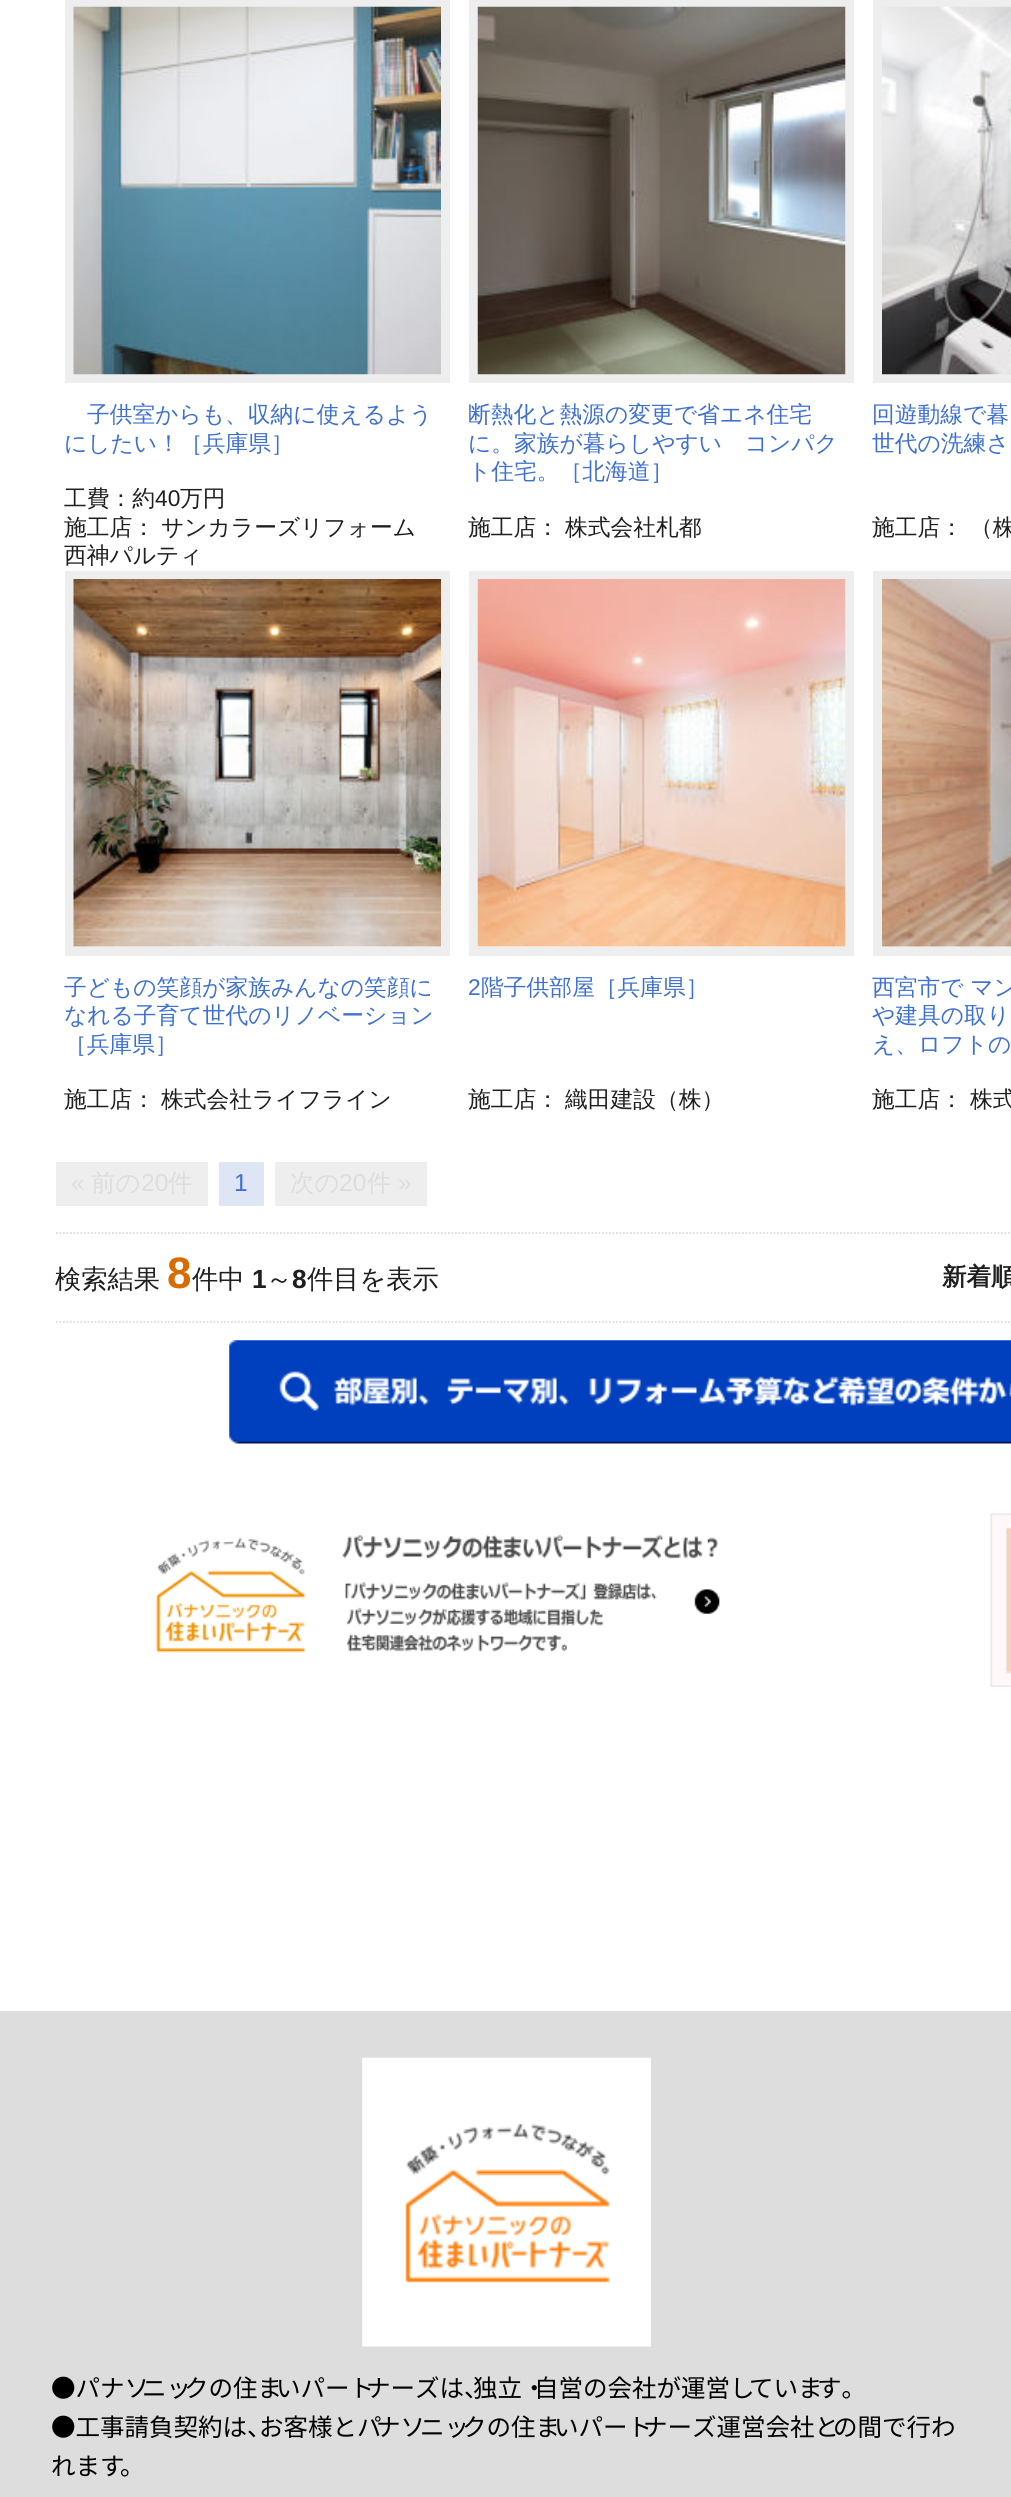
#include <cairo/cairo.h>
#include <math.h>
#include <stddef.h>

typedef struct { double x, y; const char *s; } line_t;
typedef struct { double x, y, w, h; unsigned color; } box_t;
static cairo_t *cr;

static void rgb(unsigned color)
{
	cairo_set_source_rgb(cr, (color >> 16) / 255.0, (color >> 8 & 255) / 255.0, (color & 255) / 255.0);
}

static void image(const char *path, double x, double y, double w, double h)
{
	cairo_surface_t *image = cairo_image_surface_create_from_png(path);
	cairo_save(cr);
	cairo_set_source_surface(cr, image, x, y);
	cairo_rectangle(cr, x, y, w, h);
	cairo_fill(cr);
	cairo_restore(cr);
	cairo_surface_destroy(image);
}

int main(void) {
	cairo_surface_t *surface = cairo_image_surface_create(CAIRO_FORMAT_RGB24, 1011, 2497);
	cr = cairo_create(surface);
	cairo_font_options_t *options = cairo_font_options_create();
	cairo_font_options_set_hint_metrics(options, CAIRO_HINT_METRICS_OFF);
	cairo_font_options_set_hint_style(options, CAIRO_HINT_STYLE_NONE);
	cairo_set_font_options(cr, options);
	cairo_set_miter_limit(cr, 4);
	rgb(0xffffff);
	cairo_paint(cr);
	cairo_rectangle(cr, 69.5, 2.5, 376, 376);
	rgb(0xeeeeee);
	cairo_set_line_width(cr, 9);
	cairo_stroke(cr);
	image("img/1.png", 73, 6, 368, 369);
	cairo_rectangle(cr, 473.5, 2.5, 376, 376);
	cairo_stroke(cr);
	image("img/2.png", 477, 6, 369, 369);
	cairo_rectangle(cr, 877.5, 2.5, 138, 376);
	cairo_stroke(cr);
	image("img/3.png", 882, 6, 129, 369);
	cairo_rectangle(cr, 69.5, 575.5, 376, 376);
	cairo_stroke(cr);
	image("img/4.png", 73, 579, 368, 368);
	cairo_rectangle(cr, 473.5, 575.5, 376, 376);
	cairo_stroke(cr);
	image("img/5.png", 477, 579, 369, 368);
	cairo_rectangle(cr, 877.5, 575.5, 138, 376);
	cairo_stroke(cr);
	image("img/6.png", 882, 579, 129, 368);
	{
		static const box_t items[] = {
			{56, 1162, 152, 44, 0xeeeeee},
			{219, 1162, 45, 44, 0xdee6f6},
			{275, 1162, 152, 44, 0xeeeeee},
		};
		for (size_t i = 0; i < sizeof items / sizeof *items; i++) {
			rgb(items[i].color);
			cairo_rectangle(cr, items[i].x, items[i].y, items[i].w, items[i].h);
			cairo_fill(cr);
		}
	}
	cairo_new_path(cr);
	cairo_move_to(cr, 56, 1233);
	cairo_line_to(cr, 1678, 1233);
	rgb(0xdddddd);
	cairo_set_line_width(cr, 1.8);
	cairo_set_dash(cr, (double[]){1.75, 1.75}, 2, 0);
	cairo_stroke(cr);
	cairo_new_path(cr);
	cairo_move_to(cr, 56, 1322);
	cairo_line_to(cr, 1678, 1322);
	cairo_stroke(cr);
	image("img/7.png", 229, 1340, 782, 104);
	image("img/8.png", 155, 1534, 565, 119);
	image("img/9.png", 990, 1513, 21, 174);
	cairo_rectangle(cr, 0, 2011, 1011, 486);
	cairo_fill(cr);
	image("img/10.png", 362, 2057, 289, 290);
	cairo_select_font_face(cr, "WenQuanYi Zen Hei Medium", CAIRO_FONT_SLANT_NORMAL, CAIRO_FONT_WEIGHT_NORMAL);
	cairo_set_font_size(cr, 22.75);
	rgb(0x3e70d1);
	cairo_move_to(cr, 87, 422);
	cairo_show_text(cr, "子供室からも、収納に使えるよう");
	cairo_move_to(cr, 64, 451);
	cairo_show_text(cr, "にしたい！［兵庫県］");
	rgb(0x1f1f1f);
	cairo_move_to(cr, 64, 506);
	cairo_show_text(cr, "工費：約");
	cairo_select_font_face(cr, "Liberation Sans", CAIRO_FONT_SLANT_NORMAL, CAIRO_FONT_WEIGHT_NORMAL);
	cairo_move_to(cr, 155, 506);
	cairo_show_text(cr, "40");
	cairo_select_font_face(cr, "WenQuanYi Zen Hei Medium", CAIRO_FONT_SLANT_NORMAL, CAIRO_FONT_WEIGHT_NORMAL);
	{
		static const line_t items[] = {
			{180, 506, "万円"},
			{64, 535, "施工店："},
			{161, 535, "サンカラーズリフォーム"},
			{64, 563, "西神パルティ"},
		};
		for (size_t i = 0; i < sizeof items / sizeof *items; i++) {
			cairo_move_to(cr, items[i].x, items[i].y);
			cairo_show_text(cr, items[i].s);
		}
	}
	rgb(0x3e70d1);
	{
		static const line_t items[] = {
			{468, 422, "断熱化と熱源の変更で省エネ住宅"},
			{468, 451, "に。家族が暮らしやすい　コンパク"},
			{468, 479, "ト住宅。［北海道］"},
		};
		for (size_t i = 0; i < sizeof items / sizeof *items; i++) {
			cairo_move_to(cr, items[i].x, items[i].y);
			cairo_show_text(cr, items[i].s);
		}
	}
	rgb(0x1f1f1f);
	cairo_move_to(cr, 468, 535);
	cairo_show_text(cr, "施工店：");
	cairo_move_to(cr, 565, 535);
	cairo_show_text(cr, "株式会社札都");
	rgb(0x3e70d1);
	cairo_move_to(cr, 872, 422);
	cairo_show_text(cr, "回遊動線で暮");
	cairo_move_to(cr, 872, 451);
	cairo_show_text(cr, "世代の洗練さ");
	rgb(0x1f1f1f);
	cairo_move_to(cr, 872, 535);
	cairo_show_text(cr, "施工店：");
	cairo_move_to(cr, 970, 535);
	cairo_show_text(cr, "（株");
	rgb(0x3e70d1);
	{
		static const line_t items[] = {
			{64, 995, "子どもの笑顔が家族みんなの笑顔に"},
			{64, 1023, "なれる子育て世代のリノベーション"},
			{64, 1052, "［兵庫県］"},
		};
		for (size_t i = 0; i < sizeof items / sizeof *items; i++) {
			cairo_move_to(cr, items[i].x, items[i].y);
			cairo_show_text(cr, items[i].s);
		}
	}
	rgb(0x1f1f1f);
	cairo_move_to(cr, 64, 1107);
	cairo_show_text(cr, "施工店：");
	cairo_move_to(cr, 161, 1107);
	cairo_show_text(cr, "株式会社ライフライン");
	cairo_select_font_face(cr, "Liberation Sans", CAIRO_FONT_SLANT_NORMAL, CAIRO_FONT_WEIGHT_NORMAL);
	rgb(0x3e70d1);
	cairo_move_to(cr, 468, 995);
	cairo_show_text(cr, "2");
	cairo_select_font_face(cr, "WenQuanYi Zen Hei Medium", CAIRO_FONT_SLANT_NORMAL, CAIRO_FONT_WEIGHT_NORMAL);
	cairo_move_to(cr, 481, 995);
	cairo_show_text(cr, "階子供部屋［兵庫県］");
	rgb(0x1f1f1f);
	cairo_move_to(cr, 468, 1107);
	cairo_show_text(cr, "施工店：");
	cairo_move_to(cr, 565, 1107);
	cairo_show_text(cr, "織田建設（株）");
	rgb(0x3e70d1);
	{
		static const line_t items[] = {
			{872, 995, "西宮市で マン"},
			{872, 1023, "や建具の取り"},
			{872, 1052, "え、ロフトの"},
		};
		for (size_t i = 0; i < sizeof items / sizeof *items; i++) {
			cairo_move_to(cr, items[i].x, items[i].y);
			cairo_show_text(cr, items[i].s);
		}
	}
	rgb(0x1f1f1f);
	cairo_move_to(cr, 872, 1107);
	cairo_show_text(cr, "施工店：");
	cairo_move_to(cr, 970, 1107);
	cairo_show_text(cr, "株式");
	cairo_select_font_face(cr, "Liberation Sans", CAIRO_FONT_SLANT_NORMAL, CAIRO_FONT_WEIGHT_NORMAL);
	cairo_set_font_size(cr, 24.5);
	rgb(0xdddddd);
	cairo_move_to(cr, 71, 1191);
	cairo_show_text(cr, "«");
	cairo_select_font_face(cr, "WenQuanYi Zen Hei Medium", CAIRO_FONT_SLANT_NORMAL, CAIRO_FONT_WEIGHT_NORMAL);
	cairo_move_to(cr, 91, 1191);
	cairo_show_text(cr, "前の");
	cairo_select_font_face(cr, "Liberation Sans", CAIRO_FONT_SLANT_NORMAL, CAIRO_FONT_WEIGHT_NORMAL);
	cairo_move_to(cr, 141, 1191);
	cairo_show_text(cr, "20");
	cairo_select_font_face(cr, "WenQuanYi Zen Hei Medium", CAIRO_FONT_SLANT_NORMAL, CAIRO_FONT_WEIGHT_NORMAL);
	cairo_move_to(cr, 168, 1191);
	cairo_show_text(cr, "件");
	cairo_select_font_face(cr, "Liberation Sans", CAIRO_FONT_SLANT_NORMAL, CAIRO_FONT_WEIGHT_NORMAL);
	rgb(0x3e70d1);
	cairo_move_to(cr, 234, 1191);
	cairo_show_text(cr, "1");
	cairo_select_font_face(cr, "WenQuanYi Zen Hei Medium", CAIRO_FONT_SLANT_NORMAL, CAIRO_FONT_WEIGHT_NORMAL);
	rgb(0xdddddd);
	cairo_move_to(cr, 290, 1191);
	cairo_show_text(cr, "次の");
	cairo_select_font_face(cr, "Liberation Sans", CAIRO_FONT_SLANT_NORMAL, CAIRO_FONT_WEIGHT_NORMAL);
	cairo_move_to(cr, 339, 1191);
	cairo_show_text(cr, "20");
	cairo_select_font_face(cr, "WenQuanYi Zen Hei Medium", CAIRO_FONT_SLANT_NORMAL, CAIRO_FONT_WEIGHT_NORMAL);
	cairo_move_to(cr, 367, 1191);
	cairo_show_text(cr, "件");
	cairo_select_font_face(cr, "Liberation Sans", CAIRO_FONT_SLANT_NORMAL, CAIRO_FONT_WEIGHT_NORMAL);
	cairo_move_to(cr, 398, 1191);
	cairo_show_text(cr, "»");
	cairo_select_font_face(cr, "WenQuanYi Zen Hei Medium", CAIRO_FONT_SLANT_NORMAL, CAIRO_FONT_WEIGHT_NORMAL);
	cairo_set_font_size(cr, 26.25);
	rgb(0x1f1f1f);
	cairo_move_to(cr, 55, 1288);
	cairo_show_text(cr, "検索結果");
	cairo_select_font_face(cr, "Liberation Sans", CAIRO_FONT_SLANT_NORMAL, CAIRO_FONT_WEIGHT_BOLD);
	cairo_set_font_size(cr, 44);
	rgb(0xd86c00);
	cairo_move_to(cr, 167, 1288);
	cairo_show_text(cr, "8");
	cairo_select_font_face(cr, "WenQuanYi Zen Hei Medium", CAIRO_FONT_SLANT_NORMAL, CAIRO_FONT_WEIGHT_NORMAL);
	cairo_set_font_size(cr, 26.25);
	rgb(0x1f1f1f);
	cairo_move_to(cr, 192, 1288);
	cairo_show_text(cr, "件中");
	cairo_select_font_face(cr, "Liberation Sans", CAIRO_FONT_SLANT_NORMAL, CAIRO_FONT_WEIGHT_BOLD);
	cairo_move_to(cr, 252, 1288);
	cairo_show_text(cr, "1");
	cairo_select_font_face(cr, "WenQuanYi Zen Hei Medium", CAIRO_FONT_SLANT_NORMAL, CAIRO_FONT_WEIGHT_NORMAL);
	cairo_move_to(cr, 266, 1288);
	cairo_show_text(cr, "～");
	cairo_select_font_face(cr, "Liberation Sans", CAIRO_FONT_SLANT_NORMAL, CAIRO_FONT_WEIGHT_BOLD);
	cairo_move_to(cr, 292, 1288);
	cairo_show_text(cr, "8");
	cairo_select_font_face(cr, "WenQuanYi Zen Hei Medium", CAIRO_FONT_SLANT_NORMAL, CAIRO_FONT_WEIGHT_NORMAL);
	cairo_move_to(cr, 307, 1288);
	cairo_show_text(cr, "件目を表示");
	cairo_select_font_face(cr, "WenQuanYi Zen Hei", CAIRO_FONT_SLANT_NORMAL, CAIRO_FONT_WEIGHT_BOLD);
	cairo_set_font_size(cr, 24.5);
	cairo_move_to(cr, 942, 1285);
	cairo_show_text(cr, "新着順");
	cairo_select_font_face(cr, "Noto Sans JP", CAIRO_FONT_SLANT_NORMAL, CAIRO_FONT_WEIGHT_NORMAL);
	rgb(0x000000);
	{
		static const line_t items[] = {
			{51, 2397, "●パナソ"},
			{142, 2397, "ニッ"},
			{184, 2397, "クの住ま"},
			{276, 2397, "いパート"},
			{366, 2397, "ナーズは、"},
			{473, 2397, "独立・"},
			{534, 2397, "自営の会社が運営し"},
			{749, 2397, "ていま"},
			{817, 2397, "す。"},
			{51, 2436, "●工事請負契約は、"},
			{259, 2436, "お客様とパ"},
			{376, 2436, "ナソ"},
			{420, 2436, "ニッ"},
			{462, 2436, "クの住ま"},
			{554, 2436, "いパート"},
			{643, 2436, "ナーズ運営会社と"},
			{833, 2436, "の間で行わ"},
			{51, 2475, "れます"},
			{120, 2475, "。"},
		};
		for (size_t i = 0; i < sizeof items / sizeof *items; i++) {
			cairo_move_to(cr, items[i].x, items[i].y);
			cairo_show_text(cr, items[i].s);
		}
	}
	cairo_surface_write_to_png(surface, "page.png");
	cairo_font_options_destroy(options);
	cairo_destroy(cr);
	cairo_surface_destroy(surface);
	return 0;
}
